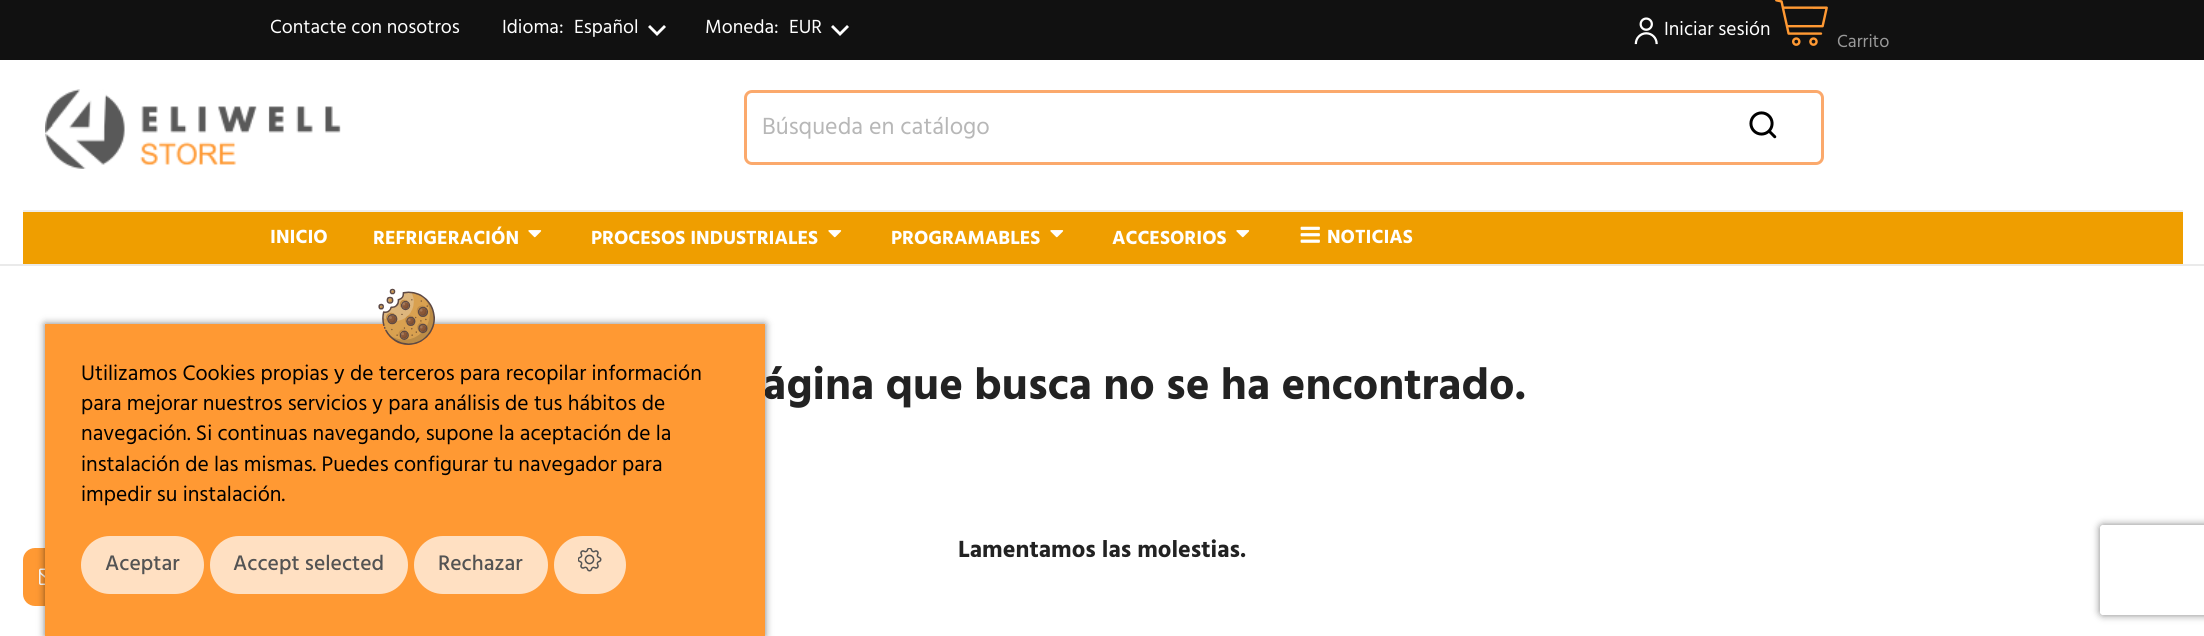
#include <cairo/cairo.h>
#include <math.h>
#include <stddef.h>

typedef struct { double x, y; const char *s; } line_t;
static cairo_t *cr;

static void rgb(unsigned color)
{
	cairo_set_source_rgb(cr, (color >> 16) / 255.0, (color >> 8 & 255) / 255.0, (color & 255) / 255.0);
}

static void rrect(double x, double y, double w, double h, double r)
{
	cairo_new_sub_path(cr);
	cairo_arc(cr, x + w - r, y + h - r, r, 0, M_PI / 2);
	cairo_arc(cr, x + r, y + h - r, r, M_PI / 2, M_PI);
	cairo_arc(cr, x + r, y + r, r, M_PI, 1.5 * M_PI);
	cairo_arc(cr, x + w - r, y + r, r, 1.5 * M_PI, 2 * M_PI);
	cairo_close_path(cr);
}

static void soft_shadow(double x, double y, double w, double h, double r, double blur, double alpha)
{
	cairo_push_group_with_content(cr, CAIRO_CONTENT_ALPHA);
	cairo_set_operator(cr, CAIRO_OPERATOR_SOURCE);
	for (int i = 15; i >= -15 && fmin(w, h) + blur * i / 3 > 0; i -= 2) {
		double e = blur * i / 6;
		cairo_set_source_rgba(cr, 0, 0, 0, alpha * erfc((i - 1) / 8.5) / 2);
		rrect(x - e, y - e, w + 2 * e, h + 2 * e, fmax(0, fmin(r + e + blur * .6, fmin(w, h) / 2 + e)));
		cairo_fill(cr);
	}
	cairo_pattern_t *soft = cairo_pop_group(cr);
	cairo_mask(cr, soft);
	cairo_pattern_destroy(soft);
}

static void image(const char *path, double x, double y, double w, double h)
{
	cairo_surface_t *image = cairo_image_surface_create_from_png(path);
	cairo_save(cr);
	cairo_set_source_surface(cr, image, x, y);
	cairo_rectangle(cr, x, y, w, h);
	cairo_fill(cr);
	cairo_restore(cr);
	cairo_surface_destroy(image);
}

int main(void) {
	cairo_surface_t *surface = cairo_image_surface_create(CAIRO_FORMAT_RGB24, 2204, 636);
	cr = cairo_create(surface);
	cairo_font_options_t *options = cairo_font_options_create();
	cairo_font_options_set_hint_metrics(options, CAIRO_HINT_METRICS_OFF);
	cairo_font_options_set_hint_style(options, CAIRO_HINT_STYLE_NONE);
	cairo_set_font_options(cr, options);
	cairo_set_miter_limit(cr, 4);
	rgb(0xffffff);
	cairo_paint(cr);
	rgb(0x111111);
	cairo_rectangle(cr, 0, 0, 2204, 60);
	cairo_fill(cr);
	rgb(0xffffff);
	cairo_new_path(cr);
	cairo_move_to(cr, 650, 25);
	cairo_line_to(cr, 657, 32);
	cairo_line_to(cr, 664, 25);
	cairo_line_to(cr, 666, 27);
	cairo_line_to(cr, 657, 36);
	cairo_line_to(cr, 648, 27);
	cairo_close_path(cr);
	cairo_fill(cr);
	cairo_new_path(cr);
	cairo_move_to(cr, 833, 25);
	cairo_line_to(cr, 840, 32);
	cairo_line_to(cr, 847, 25);
	cairo_line_to(cr, 849, 27);
	cairo_line_to(cr, 840, 36);
	cairo_line_to(cr, 831, 27);
	cairo_close_path(cr);
	cairo_fill(cr);
	image("img/1.png", 1634, 17, 24, 28);
	image("img/2.png", 1775, 0, 53, 46);
	rgb(0xeaeaea);
	cairo_rectangle(cr, 0, 264, 2204, 2);
	cairo_fill(cr);
	image("img/3.png", 45, 89, 296, 80);
	rrect(745.5, 91.5, 1077, 72, 6.5);
	rgb(0xfba96c);
	cairo_set_line_width(cr, 3);
	cairo_stroke(cr);
	image("img/4.png", 1749, 111, 28, 28);
	rgb(0xef9e00);
	cairo_rectangle(cr, 23, 212, 2160, 52);
	cairo_fill(cr);
	rgb(0xeeeeee);
	cairo_rectangle(cr, 23, 210, 2160, 2);
	cairo_fill(cr);
	image("img/5.png", 528, 230, 14, 8);
	image("img/5.png", 828, 230, 14, 8);
	image("img/5.png", 1050, 230, 14, 8);
	image("img/5.png", 1236, 230, 14, 8);
	image("img/6.png", 1300, 226, 20, 17);
	rgb(0xff9933);
	rrect(23, 548, 145, 58, 12);
	cairo_fill(cr);
	image("img/7.png", 39, 568, 6, 17);
	rgb(0x000000);
	soft_shadow(45, 324, 720, 312, 0, 4, 0.5);
	cairo_save(cr);
	cairo_set_fill_rule(cr, CAIRO_FILL_RULE_EVEN_ODD);
	cairo_new_path(cr);
	cairo_move_to(cr, 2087, 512);
	cairo_line_to(cr, 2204, 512);
	cairo_line_to(cr, 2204, 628);
	cairo_line_to(cr, 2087, 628);
	cairo_close_path(cr);
	cairo_move_to(cr, 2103, 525);
	cairo_line_to(cr, 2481, 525);
	cairo_curve_to(cr, 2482.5, 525, 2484, 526.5, 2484, 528);
	cairo_line_to(cr, 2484, 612);
	cairo_curve_to(cr, 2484, 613.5, 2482.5, 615, 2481, 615);
	cairo_line_to(cr, 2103, 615);
	cairo_curve_to(cr, 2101.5, 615, 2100, 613.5, 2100, 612);
	cairo_line_to(cr, 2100, 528);
	cairo_curve_to(cr, 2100, 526.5, 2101.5, 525, 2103, 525);
	cairo_close_path(cr);
	cairo_clip(cr);
	rgb(0x808080);
	soft_shadow(2100, 525, 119, 90, 3, 4, 1);
	cairo_restore(cr);
	cairo_select_font_face(cr, "Hind", CAIRO_FONT_SLANT_NORMAL, CAIRO_FONT_WEIGHT_NORMAL);
	cairo_set_font_size(cr, 19.5);
	rgb(0xffffff);
	{
		static const line_t items[] = {
			{270, 33, "Contacte con nosotros"},
			{502, 33, "Idioma:"},
			{574, 33, "Español"},
			{705, 33, "Moneda:"},
			{789, 33, "EUR"},
			{1664, 35, "Iniciar sesión"},
		};
		for (size_t i = 0; i < sizeof items / sizeof *items; i++) {
			cairo_move_to(cr, items[i].x, items[i].y);
			cairo_show_text(cr, items[i].s);
		}
	}
	cairo_set_font_size(cr, 18);
	rgb(0x999999);
	cairo_move_to(cr, 1837, 47);
	cairo_show_text(cr, "Carrito");
	cairo_set_font_size(cr, 24);
	rgb(0xb7b7b7);
	cairo_move_to(cr, 762, 134);
	cairo_show_text(cr, "Búsqueda en catálogo");
	cairo_select_font_face(cr, "Hind", CAIRO_FONT_SLANT_NORMAL, CAIRO_FONT_WEIGHT_BOLD);
	cairo_set_font_size(cr, 19.5);
	rgb(0xffffff);
	{
		static const line_t items[] = {
			{270, 243, "INICIO"},
			{373, 244, "REFRIGERACIÓN"},
			{591, 244, "PROCESOS INDUSTRIALES"},
			{891, 244, "PROGRAMABLES"},
			{1112, 244, "ACCESORIOS"},
			{1327, 243, "NOTICIAS"},
		};
		for (size_t i = 0; i < sizeof items / sizeof *items; i++) {
			cairo_move_to(cr, items[i].x, items[i].y);
			cairo_show_text(cr, items[i].s);
		}
	}
	cairo_set_font_size(cr, 45);
	rgb(0x222222);
	cairo_move_to(cr, 763, 399);
	cairo_show_text(cr, "ágina que busca no se ha encontrado.");
	cairo_set_font_size(cr, 24);
	cairo_move_to(cr, 958, 557);
	cairo_show_text(cr, "Lamentamos las molestias.");
	rgb(0xff9933);
	cairo_rectangle(cr, 45, 324, 720, 312);
	cairo_fill(cr);
	image("img/8.png", 378, 288, 57, 57);
	cairo_select_font_face(cr, "Hind", CAIRO_FONT_SLANT_NORMAL, CAIRO_FONT_WEIGHT_NORMAL);
	cairo_set_font_size(cr, 21.6);
	rgb(0x000000);
	{
		static const line_t items[] = {
			{81, 380, "Utilizamos Cookies propias y de terceros para recopilar información"},
			{81, 410, "para mejorar nuestros servicios y para análisis de tus hábitos de"},
			{81, 440, "navegación. Si continuas navegando, supone la aceptación de la"},
			{81, 471, "instalación de las mismas. Puedes configurar tu navegador para"},
			{81, 501, "impedir su instalación."},
		};
		for (size_t i = 0; i < sizeof items / sizeof *items; i++) {
			cairo_move_to(cr, items[i].x, items[i].y);
			cairo_show_text(cr, items[i].s);
		}
	}
	rgb(0xffe0c2);
	rrect(81, 536, 123, 58, 29);
	cairo_fill(cr);
	cairo_select_font_face(cr, "Hind Medium", CAIRO_FONT_SLANT_NORMAL, CAIRO_FONT_WEIGHT_NORMAL);
	rgb(0x535353);
	cairo_move_to(cr, 105, 570);
	cairo_show_text(cr, "Aceptar");
	rgb(0xffe0c2);
	rrect(210, 536, 198, 58, 29);
	cairo_fill(cr);
	rgb(0x535353);
	cairo_move_to(cr, 233, 570);
	cairo_show_text(cr, "Accept selected");
	rgb(0xffe0c2);
	rrect(414, 536, 134, 58, 29);
	cairo_fill(cr);
	rgb(0x535353);
	cairo_move_to(cr, 438, 570);
	cairo_show_text(cr, "Rechazar");
	rgb(0xffe0c2);
	rrect(554, 536, 72, 58, 29);
	cairo_fill(cr);
	image("img/9.png", 578, 548, 24, 24);
	cairo_surface_write_to_png(surface, "page.png");
	cairo_font_options_destroy(options);
	cairo_destroy(cr);
	cairo_surface_destroy(surface);
	return 0;
}
